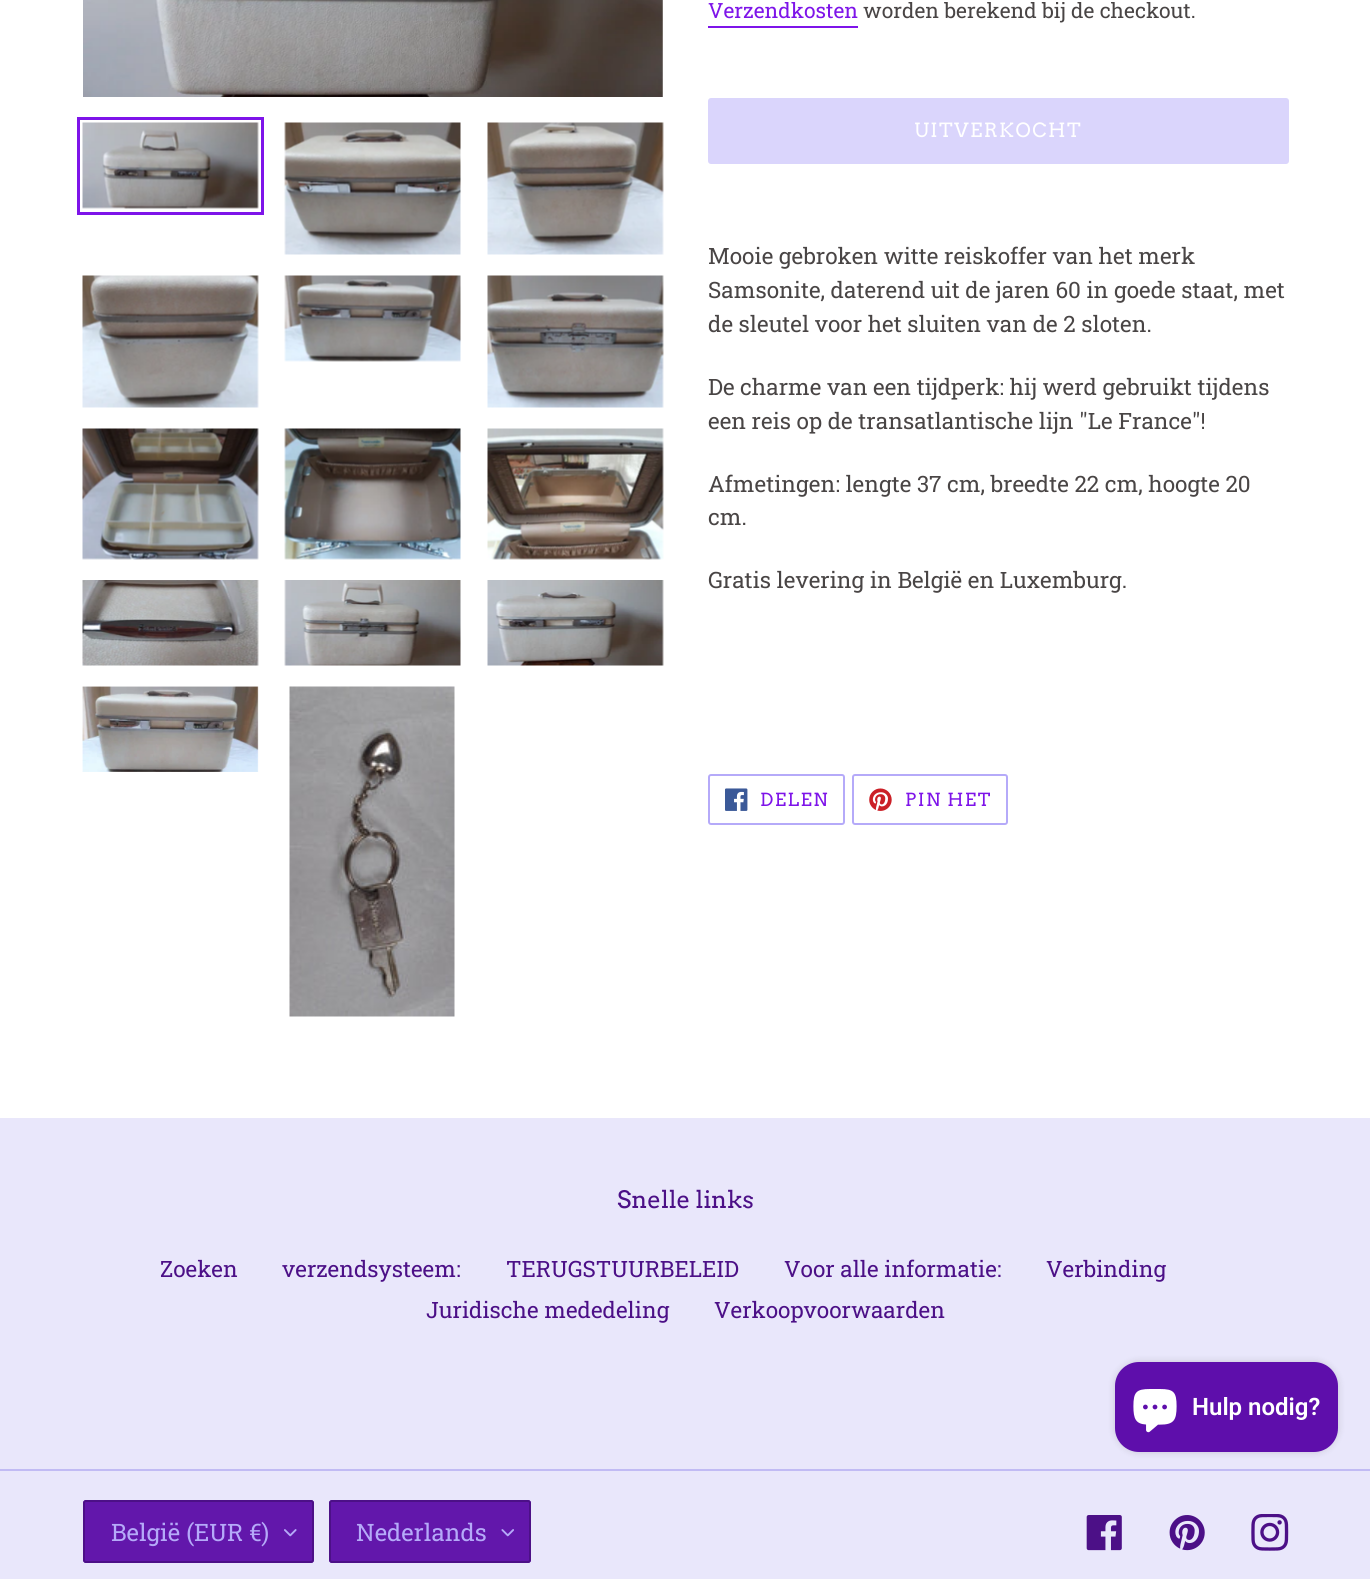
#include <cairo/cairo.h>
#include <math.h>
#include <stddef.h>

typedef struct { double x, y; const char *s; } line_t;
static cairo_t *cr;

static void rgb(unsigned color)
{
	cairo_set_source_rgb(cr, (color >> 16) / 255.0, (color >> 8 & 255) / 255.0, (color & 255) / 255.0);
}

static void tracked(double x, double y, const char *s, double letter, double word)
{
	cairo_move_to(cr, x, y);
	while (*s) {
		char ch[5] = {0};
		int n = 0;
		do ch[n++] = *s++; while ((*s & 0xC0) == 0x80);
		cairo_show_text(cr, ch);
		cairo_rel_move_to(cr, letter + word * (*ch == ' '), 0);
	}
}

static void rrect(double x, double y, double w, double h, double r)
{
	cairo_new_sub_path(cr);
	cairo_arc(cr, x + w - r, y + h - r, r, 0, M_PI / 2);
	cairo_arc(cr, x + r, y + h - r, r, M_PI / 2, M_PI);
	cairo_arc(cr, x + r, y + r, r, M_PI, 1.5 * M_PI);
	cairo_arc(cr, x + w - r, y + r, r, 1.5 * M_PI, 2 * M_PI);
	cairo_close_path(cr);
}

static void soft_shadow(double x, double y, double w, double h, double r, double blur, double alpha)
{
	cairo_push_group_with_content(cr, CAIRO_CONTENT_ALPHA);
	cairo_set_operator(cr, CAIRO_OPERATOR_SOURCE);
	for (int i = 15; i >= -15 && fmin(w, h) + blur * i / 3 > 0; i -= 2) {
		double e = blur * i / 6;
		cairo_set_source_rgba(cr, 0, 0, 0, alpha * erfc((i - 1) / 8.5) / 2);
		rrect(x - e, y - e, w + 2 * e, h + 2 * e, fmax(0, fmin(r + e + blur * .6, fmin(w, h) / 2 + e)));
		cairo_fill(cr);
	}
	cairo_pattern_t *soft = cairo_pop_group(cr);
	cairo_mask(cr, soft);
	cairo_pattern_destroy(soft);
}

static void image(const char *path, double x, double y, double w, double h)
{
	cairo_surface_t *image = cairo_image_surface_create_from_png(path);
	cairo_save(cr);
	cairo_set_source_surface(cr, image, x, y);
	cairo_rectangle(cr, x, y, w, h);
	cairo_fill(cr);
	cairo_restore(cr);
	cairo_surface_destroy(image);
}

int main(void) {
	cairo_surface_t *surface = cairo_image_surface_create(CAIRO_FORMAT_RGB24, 1370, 1579);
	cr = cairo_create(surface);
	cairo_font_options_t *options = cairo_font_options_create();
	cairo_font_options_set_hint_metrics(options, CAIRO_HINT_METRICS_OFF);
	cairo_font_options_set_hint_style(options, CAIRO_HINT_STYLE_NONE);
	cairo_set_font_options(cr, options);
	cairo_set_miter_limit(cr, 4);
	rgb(0xffffff);
	cairo_paint(cr);
	image("img/1.png", 83, 0, 580, 97);
	cairo_rectangle(cr, 78.5, 118.5, 184, 95);
	rgb(0x7e14e9);
	cairo_set_line_width(cr, 3);
	cairo_stroke(cr);
	image("img/2.png", 82, 122, 177, 87);
	image("img/3.png", 284, 122, 177, 133);
	image("img/4.png", 487, 122, 177, 133);
	image("img/5.png", 82, 275, 177, 133);
	image("img/6.png", 284, 275, 177, 87);
	image("img/7.png", 487, 275, 177, 133);
	image("img/8.png", 82, 428, 177, 132);
	image("img/9.png", 284, 428, 177, 132);
	image("img/10.png", 487, 428, 177, 132);
	image("img/11.png", 82, 580, 177, 86);
	image("img/12.png", 284, 580, 177, 86);
	image("img/13.png", 487, 580, 177, 86);
	image("img/14.png", 82, 686, 177, 86);
	image("img/15.png", 289, 686, 166, 331);
	cairo_rectangle(cr, 708, 26, 150, 2);
	cairo_fill(cr);
	rgb(0xdad5fc);
	rrect(708, 98, 581, 66, 3);
	cairo_fill(cr);
	rrect(709, 775, 135, 49, 2);
	rgb(0xb5aaf9);
	cairo_set_line_width(cr, 2);
	cairo_stroke(cr);
	image("img/16.png", 725, 788, 23, 23);
	rrect(853, 775, 154, 49, 2);
	cairo_stroke(cr);
	image("img/17.png", 869, 788, 23, 23);
	rgb(0xe9e7fb);
	cairo_rectangle(cr, 0, 1118, 1370, 461);
	cairo_fill(cr);
	rgb(0xc1bbf4);
	cairo_rectangle(cr, 0, 1469, 1370, 2);
	cairo_fill(cr);
	rgb(0x6217ab);
	rrect(83, 1500, 231, 63, 3);
	cairo_fill(cr);
	image("img/18.png", 284, 1529, 13, 8);
	rrect(84, 1501, 229, 61, 2);
	rgb(0x4c1087);
	cairo_stroke(cr);
	rgb(0x6217ab);
	rrect(329, 1500, 202, 63, 3);
	cairo_fill(cr);
	image("img/19.png", 501, 1529, 13, 8);
	rrect(330, 1501, 200, 61, 2);
	rgb(0x4c1087);
	cairo_stroke(cr);
	image("img/20.png", 1086, 1515, 36, 36);
	image("img/21.png", 1169, 1515, 36, 36);
	image("img/22.png", 1251, 1514, 38, 37);
	rgb(0x000000);
	soft_shadow(1115, 1362, 223, 90, 24, 4, 0.15);
	rgb(0x5e0eab);
	rrect(1115, 1362, 223, 90, 24);
	cairo_fill(cr);
	image("img/23.png", 1133, 1389, 44, 44);
	cairo_select_font_face(cr, "Roboto Slab", CAIRO_FONT_SLANT_NORMAL, CAIRO_FONT_WEIGHT_NORMAL);
	cairo_set_font_size(cr, 21);
	rgb(0x7e14e9);
	cairo_move_to(cr, 708, 18);
	cairo_show_text(cr, "Verzendkosten");
	rgb(0x494545);
	cairo_move_to(cr, 863, 18);
	cairo_show_text(cr, "worden berekend bij de checkout.");
	cairo_select_font_face(cr, "Arvo", CAIRO_FONT_SLANT_NORMAL, CAIRO_FONT_WEIGHT_NORMAL);
	cairo_set_font_size(cr, 19.5);
	rgb(0xffffff);
	tracked(914, 137, "UITVERKOCHT", 1.5, 0);
	cairo_select_font_face(cr, "Roboto Slab", CAIRO_FONT_SLANT_NORMAL, CAIRO_FONT_WEIGHT_NORMAL);
	cairo_set_font_size(cr, 22.5);
	rgb(0x494545);
	{
		static const line_t items[] = {
			{708, 264, "Mooie gebroken witte reiskoffer van het merk"},
			{708, 298, "Samsonite, daterend uit de jaren 60 in goede staat, met"},
			{708, 332, "de sleutel voor het sluiten van de 2 sloten."},
			{708, 395, "De charme van een tijdperk: hij werd gebruikt tijdens"},
			{708, 429, "een reis op de transatlantische lijn \"Le France\"!"},
			{708, 492, "Afmetingen: lengte 37 cm, breedte 22 cm, hoogte 20"},
			{708, 525, "cm."},
			{708, 588, "Gratis levering in België en Luxemburg."},
		};
		for (size_t i = 0; i < sizeof items / sizeof *items; i++) {
			cairo_move_to(cr, items[i].x, items[i].y);
			cairo_show_text(cr, items[i].s);
		}
	}
	cairo_select_font_face(cr, "Arvo", CAIRO_FONT_SLANT_NORMAL, CAIRO_FONT_WEIGHT_NORMAL);
	cairo_set_font_size(cr, 18);
	rgb(0x7e14e9);
	tracked(760, 806, "DELEN", 1.5, 0);
	tracked(905, 806, "PIN HET", 1.5, 0);
	cairo_set_font_size(cr, 24);
	rgb(0x4c1087);
	cairo_move_to(cr, 617, 1208);
	cairo_show_text(cr, "Snelle links");
	cairo_select_font_face(cr, "Roboto Slab", CAIRO_FONT_SLANT_NORMAL, CAIRO_FONT_WEIGHT_NORMAL);
	cairo_set_font_size(cr, 22.5);
	{
		static const line_t items[] = {
			{160, 1277, "Zoeken"},
			{282, 1277, "verzendsysteem:"},
			{506, 1277, "TERUGSTUURBELEID"},
			{784, 1277, "Voor alle informatie:"},
			{1046, 1277, "Verbinding"},
			{426, 1318, "Juridische mededeling"},
			{714, 1318, "Verkoopvoorwaarden"},
		};
		for (size_t i = 0; i < sizeof items / sizeof *items; i++) {
			cairo_move_to(cr, items[i].x, items[i].y);
			cairo_show_text(cr, items[i].s);
		}
	}
	cairo_set_font_size(cr, 24);
	rgb(0xb5aaf9);
	cairo_move_to(cr, 111, 1541);
	cairo_show_text(cr, "België (EUR €)");
	cairo_move_to(cr, 356, 1541);
	cairo_show_text(cr, "Nederlands");
	cairo_select_font_face(cr, "Roboto SemiBold", CAIRO_FONT_SLANT_NORMAL, CAIRO_FONT_WEIGHT_NORMAL);
	rgb(0xffffff);
	cairo_move_to(cr, 1192, 1415);
	cairo_show_text(cr, "Hulp nodig?");
	cairo_surface_write_to_png(surface, "page.png");
	cairo_font_options_destroy(options);
	cairo_destroy(cr);
	cairo_surface_destroy(surface);
	return 0;
}
